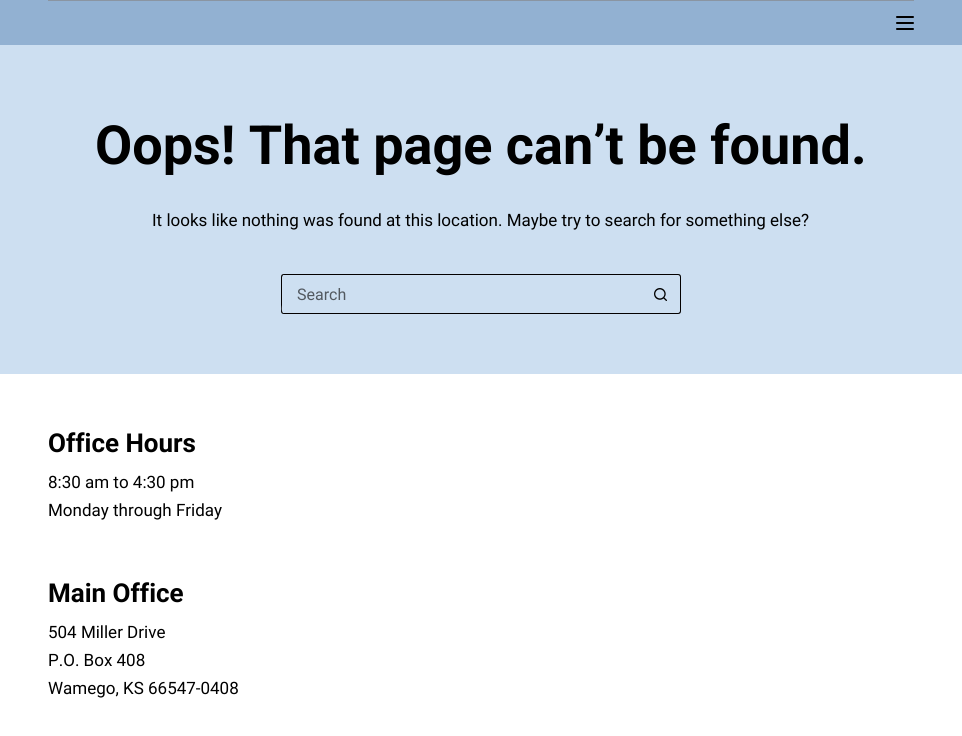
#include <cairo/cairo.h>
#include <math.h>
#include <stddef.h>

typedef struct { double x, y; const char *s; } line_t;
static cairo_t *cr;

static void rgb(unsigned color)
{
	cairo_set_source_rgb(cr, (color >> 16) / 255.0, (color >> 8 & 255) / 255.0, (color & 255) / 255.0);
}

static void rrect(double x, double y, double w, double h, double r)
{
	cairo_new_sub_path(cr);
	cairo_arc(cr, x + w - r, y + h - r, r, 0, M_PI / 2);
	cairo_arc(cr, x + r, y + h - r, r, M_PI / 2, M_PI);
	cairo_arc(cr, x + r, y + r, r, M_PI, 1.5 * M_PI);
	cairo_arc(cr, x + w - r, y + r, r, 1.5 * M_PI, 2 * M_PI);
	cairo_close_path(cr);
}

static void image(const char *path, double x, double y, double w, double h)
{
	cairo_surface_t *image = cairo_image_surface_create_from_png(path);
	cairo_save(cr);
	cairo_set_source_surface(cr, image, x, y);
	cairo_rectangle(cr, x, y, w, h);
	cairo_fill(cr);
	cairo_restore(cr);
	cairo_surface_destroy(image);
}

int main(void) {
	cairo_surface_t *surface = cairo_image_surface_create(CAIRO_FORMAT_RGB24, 962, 736);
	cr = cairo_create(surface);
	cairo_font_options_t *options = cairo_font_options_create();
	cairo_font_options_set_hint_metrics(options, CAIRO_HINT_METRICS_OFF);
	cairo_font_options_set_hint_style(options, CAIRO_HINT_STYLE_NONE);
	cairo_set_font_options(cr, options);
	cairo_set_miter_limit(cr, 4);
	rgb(0xcddff1);
	cairo_paint(cr);
	rgb(0x92b1d2);
	cairo_rectangle(cr, 0, 0, 962, 45);
	cairo_fill(cr);
	rgb(0x8a95a2);
	cairo_rectangle(cr, 48, 0, 866, 1);
	cairo_fill(cr);
	rgb(0x000000);
	rrect(896, 16, 18, 2, 1);
	cairo_fill(cr);
	rrect(896, 22, 18, 2, 1);
	cairo_fill(cr);
	rrect(896, 28, 18, 2, 1);
	cairo_fill(cr);
	rgb(0x030000);
	cairo_set_fill_rule(cr, CAIRO_FILL_RULE_EVEN_ODD);
	cairo_new_path(cr);
	cairo_move_to(cr, 284, 274);
	cairo_line_to(cr, 641, 274);
	cairo_line_to(cr, 641, 314);
	cairo_line_to(cr, 284, 314);
	cairo_curve_to(cr, 282, 314, 281, 313, 281, 311);
	cairo_line_to(cr, 281, 277);
	cairo_curve_to(cr, 281, 275, 282, 274, 284, 274);
	cairo_close_path(cr);
	cairo_move_to(cr, 284, 275);
	cairo_line_to(cr, 641, 275);
	cairo_line_to(cr, 641, 313);
	cairo_line_to(cr, 283, 313);
	cairo_curve_to(cr, 281, 311, 282, 306, 282, 305);
	cairo_line_to(cr, 282, 277);
	cairo_line_to(cr, 283, 275);
	cairo_close_path(cr);
	cairo_fill(cr);
	cairo_new_path(cr);
	cairo_move_to(cr, 641, 274);
	cairo_line_to(cr, 678, 274);
	cairo_curve_to(cr, 680, 274, 681, 275, 681, 277);
	cairo_line_to(cr, 681, 311);
	cairo_curve_to(cr, 681, 313, 680, 314, 678, 314);
	cairo_line_to(cr, 641, 314);
	cairo_close_path(cr);
	cairo_move_to(cr, 641, 275);
	cairo_line_to(cr, 678, 275);
	cairo_curve_to(cr, 679, 275, 680, 276, 680, 277);
	cairo_line_to(cr, 680, 311);
	cairo_curve_to(cr, 680, 312, 679, 313, 678, 313);
	cairo_line_to(cr, 641, 313);
	cairo_close_path(cr);
	cairo_fill(cr);
	image("img/1.png", 654, 288, 13, 13);
	rgb(0xffffff);
	cairo_rectangle(cr, 0, 374, 962, 362);
	cairo_fill(cr);
	cairo_select_font_face(cr, "Roboto", CAIRO_FONT_SLANT_NORMAL, CAIRO_FONT_WEIGHT_BOLD);
	cairo_set_font_size(cr, 54);
	rgb(0x000000);
	cairo_move_to(cr, 95, 164);
	cairo_show_text(cr, "Oops! That page can’t be found.");
	cairo_select_font_face(cr, "Roboto", CAIRO_FONT_SLANT_NORMAL, CAIRO_FONT_WEIGHT_NORMAL);
	cairo_set_font_size(cr, 17);
	cairo_move_to(cr, 152, 226);
	cairo_show_text(cr, "It looks like nothing was found at this location. Maybe try to search for something else?");
	cairo_set_font_size(cr, 16);
	rgb(0x525960);
	cairo_move_to(cr, 297, 300);
	cairo_show_text(cr, "Search");
	cairo_select_font_face(cr, "Roboto", CAIRO_FONT_SLANT_NORMAL, CAIRO_FONT_WEIGHT_BOLD);
	cairo_set_font_size(cr, 26);
	rgb(0x000000);
	cairo_move_to(cr, 48, 452);
	cairo_show_text(cr, "Office Hours");
	cairo_select_font_face(cr, "Roboto", CAIRO_FONT_SLANT_NORMAL, CAIRO_FONT_WEIGHT_NORMAL);
	cairo_set_font_size(cr, 17);
	cairo_move_to(cr, 48, 488);
	cairo_show_text(cr, "8:30 am to 4:30 pm");
	cairo_move_to(cr, 48, 516);
	cairo_show_text(cr, "Monday through Friday");
	cairo_select_font_face(cr, "Roboto", CAIRO_FONT_SLANT_NORMAL, CAIRO_FONT_WEIGHT_BOLD);
	cairo_set_font_size(cr, 26);
	cairo_move_to(cr, 48, 602);
	cairo_show_text(cr, "Main Office");
	cairo_select_font_face(cr, "Roboto", CAIRO_FONT_SLANT_NORMAL, CAIRO_FONT_WEIGHT_NORMAL);
	cairo_set_font_size(cr, 17);
	{
		static const line_t items[] = {
			{48, 638, "504 Miller Drive"},
			{48, 666, "P.O. Box 408"},
			{48, 694, "Wamego, KS 66547-0408"},
		};
		for (size_t i = 0; i < sizeof items / sizeof *items; i++) {
			cairo_move_to(cr, items[i].x, items[i].y);
			cairo_show_text(cr, items[i].s);
		}
	}
	cairo_surface_write_to_png(surface, "page.png");
	cairo_font_options_destroy(options);
	cairo_destroy(cr);
	cairo_surface_destroy(surface);
	return 0;
}
